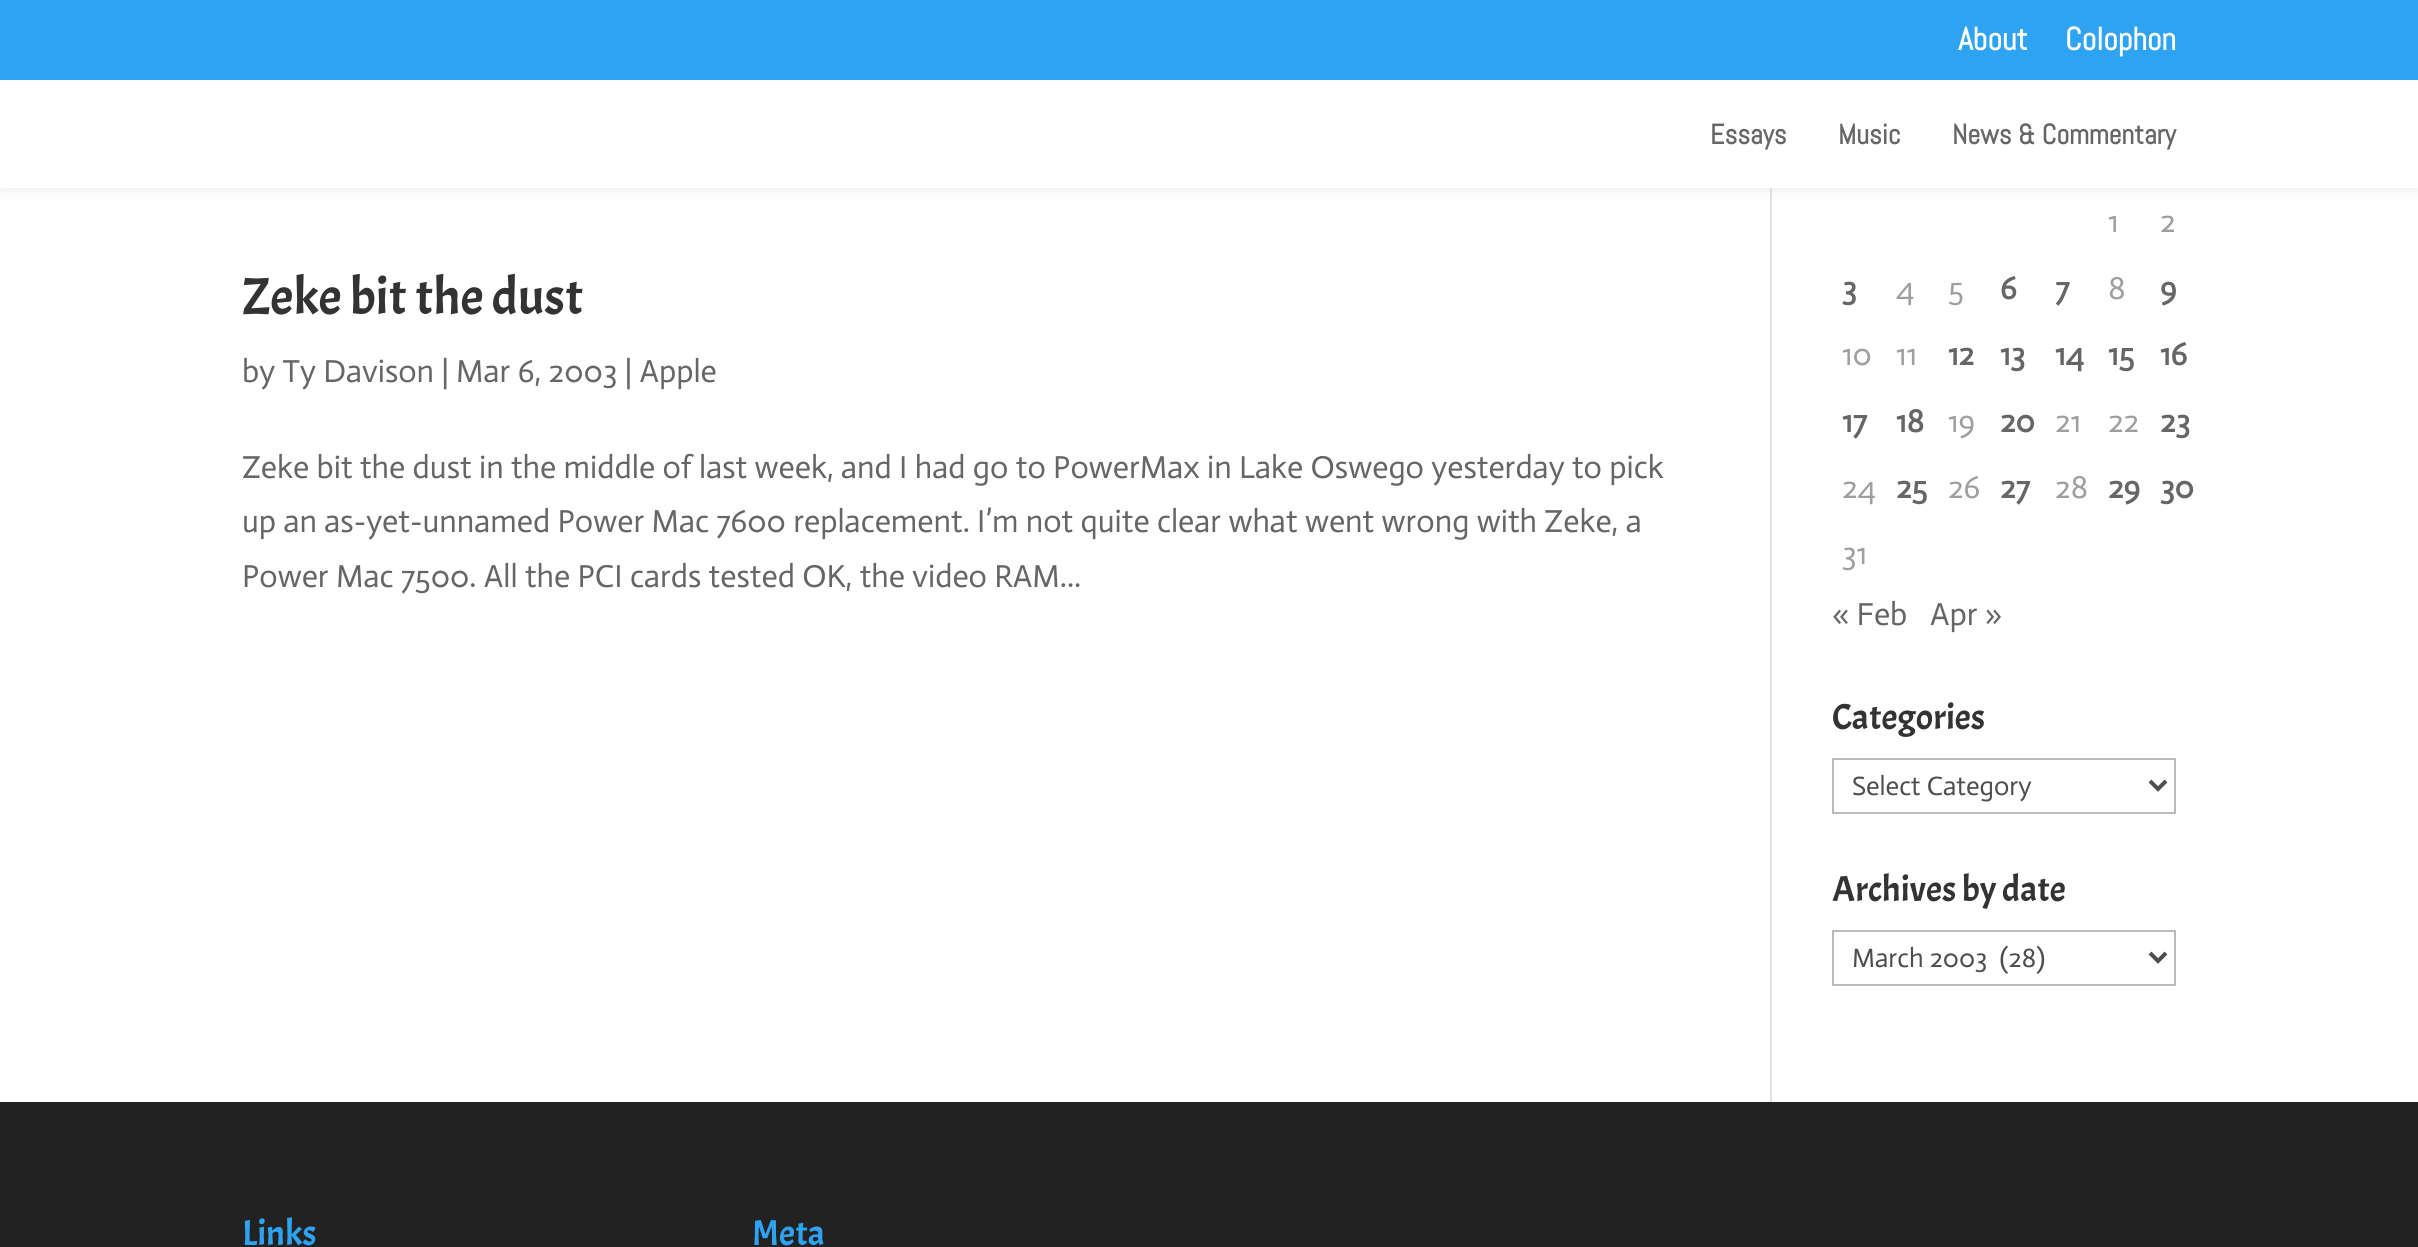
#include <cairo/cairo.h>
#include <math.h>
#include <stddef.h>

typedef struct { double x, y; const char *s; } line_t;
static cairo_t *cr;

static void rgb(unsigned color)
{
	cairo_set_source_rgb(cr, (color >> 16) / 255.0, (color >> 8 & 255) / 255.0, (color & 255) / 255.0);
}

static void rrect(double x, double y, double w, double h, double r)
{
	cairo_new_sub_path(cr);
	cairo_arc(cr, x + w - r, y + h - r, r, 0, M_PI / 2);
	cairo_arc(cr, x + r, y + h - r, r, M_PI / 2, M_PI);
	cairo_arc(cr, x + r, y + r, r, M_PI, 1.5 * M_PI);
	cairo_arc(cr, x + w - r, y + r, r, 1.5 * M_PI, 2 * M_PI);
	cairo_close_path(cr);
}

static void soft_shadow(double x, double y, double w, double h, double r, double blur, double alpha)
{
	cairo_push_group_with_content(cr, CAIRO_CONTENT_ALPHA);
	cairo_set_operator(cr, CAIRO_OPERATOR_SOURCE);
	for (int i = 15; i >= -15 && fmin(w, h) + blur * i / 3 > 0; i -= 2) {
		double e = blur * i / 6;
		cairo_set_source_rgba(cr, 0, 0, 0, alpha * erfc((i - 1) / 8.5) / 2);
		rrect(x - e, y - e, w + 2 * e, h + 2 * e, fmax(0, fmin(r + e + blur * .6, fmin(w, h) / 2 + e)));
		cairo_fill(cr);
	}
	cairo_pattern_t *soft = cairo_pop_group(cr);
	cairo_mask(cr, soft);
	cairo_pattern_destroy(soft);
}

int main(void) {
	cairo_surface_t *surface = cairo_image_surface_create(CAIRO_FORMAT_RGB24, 2418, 1247);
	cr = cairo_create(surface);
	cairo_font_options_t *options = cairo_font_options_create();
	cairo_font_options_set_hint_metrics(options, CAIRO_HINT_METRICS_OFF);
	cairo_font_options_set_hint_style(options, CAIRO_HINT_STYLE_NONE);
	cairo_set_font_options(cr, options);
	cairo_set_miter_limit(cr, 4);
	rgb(0xffffff);
	cairo_paint(cr);
	rgb(0xe2e2e2);
	cairo_rectangle(cr, 1770, 188, 2, 914);
	cairo_fill(cr);
	rgb(0x000000);
	soft_shadow(0, 80, 2418, 108, 0, 7, 0.1);
	rgb(0x2ea3f2);
	cairo_rectangle(cr, 0, 0, 2418, 80);
	cairo_fill(cr);
	rgb(0xffffff);
	cairo_rectangle(cr, 0, 80, 2418, 108);
	cairo_fill(cr);
	cairo_rectangle(cr, 1833, 759, 342, 54);
	rgb(0xbbbbbb);
	cairo_stroke(cr);
	cairo_new_path(cr);
	cairo_move_to(cr, 2150, 781);
	cairo_line_to(cr, 2158, 789);
	cairo_line_to(cr, 2166, 781);
	rgb(0x4e4e4e);
	cairo_set_line_width(cr, 4);
	cairo_stroke(cr);
	cairo_rectangle(cr, 1833, 931, 342, 54);
	rgb(0xbbbbbb);
	cairo_set_line_width(cr, 2);
	cairo_stroke(cr);
	cairo_new_path(cr);
	cairo_move_to(cr, 2150, 953);
	cairo_line_to(cr, 2158, 961);
	cairo_line_to(cr, 2166, 953);
	rgb(0x4e4e4e);
	cairo_set_line_width(cr, 4);
	cairo_stroke(cr);
	rgb(0x222222);
	cairo_rectangle(cr, 0, 1102, 2418, 145);
	cairo_fill(cr);
	cairo_select_font_face(cr, "Abel", CAIRO_FONT_SLANT_NORMAL, CAIRO_FONT_WEIGHT_BOLD);
	cairo_set_font_size(cr, 32);
	rgb(0xffffff);
	cairo_move_to(cr, 1958, 50);
	cairo_show_text(cr, "About");
	cairo_move_to(cr, 2065, 50);
	cairo_show_text(cr, "Colophon");
	cairo_set_font_size(cr, 28);
	rgb(0x666666);
	{
		static const line_t items[] = {
			{1710, 144, "Essays"},
			{1838, 144, "Music"},
			{1952, 144, "News & Commentary"},
		};
		for (size_t i = 0; i < sizeof items / sizeof *items; i++) {
			cairo_move_to(cr, items[i].x, items[i].y);
			cairo_show_text(cr, items[i].s);
		}
	}
	cairo_select_font_face(cr, "Acme", CAIRO_FONT_SLANT_NORMAL, CAIRO_FONT_WEIGHT_NORMAL);
	cairo_set_font_size(cr, 52);
	rgb(0x333333);
	cairo_move_to(cr, 242, 314);
	cairo_show_text(cr, "Zeke bit the dust");
	cairo_select_font_face(cr, "Actor", CAIRO_FONT_SLANT_NORMAL, CAIRO_FONT_WEIGHT_NORMAL);
	cairo_set_font_size(cr, 32);
	rgb(0x666666);
	{
		static const line_t items[] = {
			{242, 382, "by Ty Davison | Mar 6, 2003 | Apple"},
			{242, 478, "Zeke bit the dust in the middle of last week, and I had go to PowerMax in Lake Oswego yesterday to pick"},
			{242, 532, "up an as-yet-unnamed Power Mac 7600 replacement. I’m not quite clear what went wrong with Zeke, a"},
			{242, 587, "Power Mac 7500. All the PCI cards tested OK, the video RAM..."},
		};
		for (size_t i = 0; i < sizeof items / sizeof *items; i++) {
			cairo_move_to(cr, items[i].x, items[i].y);
			cairo_show_text(cr, items[i].s);
		}
	}
	rgb(0x9f9f9f);
	cairo_move_to(cr, 2108, 232);
	cairo_show_text(cr, "1");
	cairo_move_to(cr, 2160, 232);
	cairo_show_text(cr, "2");
	cairo_select_font_face(cr, "Actor", CAIRO_FONT_SLANT_NORMAL, CAIRO_FONT_WEIGHT_BOLD);
	rgb(0x666666);
	cairo_move_to(cr, 1842, 299);
	cairo_show_text(cr, "3");
	cairo_select_font_face(cr, "Actor", CAIRO_FONT_SLANT_NORMAL, CAIRO_FONT_WEIGHT_NORMAL);
	rgb(0x9f9f9f);
	cairo_move_to(cr, 1896, 299);
	cairo_show_text(cr, "4");
	cairo_move_to(cr, 1948, 299);
	cairo_show_text(cr, "5");
	cairo_select_font_face(cr, "Actor", CAIRO_FONT_SLANT_NORMAL, CAIRO_FONT_WEIGHT_BOLD);
	rgb(0x666666);
	cairo_move_to(cr, 2000, 299);
	cairo_show_text(cr, "6");
	cairo_move_to(cr, 2055, 299);
	cairo_show_text(cr, "7");
	cairo_select_font_face(cr, "Actor", CAIRO_FONT_SLANT_NORMAL, CAIRO_FONT_WEIGHT_NORMAL);
	rgb(0x9f9f9f);
	cairo_move_to(cr, 2108, 299);
	cairo_show_text(cr, "8");
	cairo_select_font_face(cr, "Actor", CAIRO_FONT_SLANT_NORMAL, CAIRO_FONT_WEIGHT_BOLD);
	rgb(0x666666);
	cairo_move_to(cr, 2160, 299);
	cairo_show_text(cr, "9");
	cairo_select_font_face(cr, "Actor", CAIRO_FONT_SLANT_NORMAL, CAIRO_FONT_WEIGHT_NORMAL);
	rgb(0x9f9f9f);
	cairo_move_to(cr, 1842, 365);
	cairo_show_text(cr, "10");
	cairo_move_to(cr, 1896, 365);
	cairo_show_text(cr, "11");
	cairo_select_font_face(cr, "Actor", CAIRO_FONT_SLANT_NORMAL, CAIRO_FONT_WEIGHT_BOLD);
	rgb(0x666666);
	{
		static const line_t items[] = {
			{1948, 365, "12"},
			{2000, 365, "13"},
			{2055, 365, "14"},
			{2108, 365, "15"},
			{2160, 365, "16"},
			{1842, 432, "17"},
			{1896, 432, "18"},
		};
		for (size_t i = 0; i < sizeof items / sizeof *items; i++) {
			cairo_move_to(cr, items[i].x, items[i].y);
			cairo_show_text(cr, items[i].s);
		}
	}
	cairo_select_font_face(cr, "Actor", CAIRO_FONT_SLANT_NORMAL, CAIRO_FONT_WEIGHT_NORMAL);
	rgb(0x9f9f9f);
	cairo_move_to(cr, 1948, 432);
	cairo_show_text(cr, "19");
	cairo_select_font_face(cr, "Actor", CAIRO_FONT_SLANT_NORMAL, CAIRO_FONT_WEIGHT_BOLD);
	rgb(0x666666);
	cairo_move_to(cr, 2000, 432);
	cairo_show_text(cr, "20");
	cairo_select_font_face(cr, "Actor", CAIRO_FONT_SLANT_NORMAL, CAIRO_FONT_WEIGHT_NORMAL);
	rgb(0x9f9f9f);
	cairo_move_to(cr, 2055, 432);
	cairo_show_text(cr, "21");
	cairo_move_to(cr, 2108, 432);
	cairo_show_text(cr, "22");
	cairo_select_font_face(cr, "Actor", CAIRO_FONT_SLANT_NORMAL, CAIRO_FONT_WEIGHT_BOLD);
	rgb(0x666666);
	cairo_move_to(cr, 2160, 432);
	cairo_show_text(cr, "23");
	cairo_select_font_face(cr, "Actor", CAIRO_FONT_SLANT_NORMAL, CAIRO_FONT_WEIGHT_NORMAL);
	rgb(0x9f9f9f);
	cairo_move_to(cr, 1842, 498);
	cairo_show_text(cr, "24");
	cairo_select_font_face(cr, "Actor", CAIRO_FONT_SLANT_NORMAL, CAIRO_FONT_WEIGHT_BOLD);
	rgb(0x666666);
	cairo_move_to(cr, 1896, 498);
	cairo_show_text(cr, "25");
	cairo_select_font_face(cr, "Actor", CAIRO_FONT_SLANT_NORMAL, CAIRO_FONT_WEIGHT_NORMAL);
	rgb(0x9f9f9f);
	cairo_move_to(cr, 1948, 498);
	cairo_show_text(cr, "26");
	cairo_select_font_face(cr, "Actor", CAIRO_FONT_SLANT_NORMAL, CAIRO_FONT_WEIGHT_BOLD);
	rgb(0x666666);
	cairo_move_to(cr, 2000, 498);
	cairo_show_text(cr, "27");
	cairo_select_font_face(cr, "Actor", CAIRO_FONT_SLANT_NORMAL, CAIRO_FONT_WEIGHT_NORMAL);
	rgb(0x9f9f9f);
	cairo_move_to(cr, 2055, 498);
	cairo_show_text(cr, "28");
	cairo_select_font_face(cr, "Actor", CAIRO_FONT_SLANT_NORMAL, CAIRO_FONT_WEIGHT_BOLD);
	rgb(0x666666);
	cairo_move_to(cr, 2108, 498);
	cairo_show_text(cr, "29");
	cairo_move_to(cr, 2160, 498);
	cairo_show_text(cr, "30");
	cairo_select_font_face(cr, "Actor", CAIRO_FONT_SLANT_NORMAL, CAIRO_FONT_WEIGHT_NORMAL);
	rgb(0x9f9f9f);
	cairo_move_to(cr, 1842, 564);
	cairo_show_text(cr, "31");
	rgb(0x666666);
	cairo_move_to(cr, 1832, 625);
	cairo_show_text(cr, "« Feb");
	cairo_move_to(cr, 1930, 625);
	cairo_show_text(cr, "Apr »");
	cairo_select_font_face(cr, "Acme", CAIRO_FONT_SLANT_NORMAL, CAIRO_FONT_WEIGHT_NORMAL);
	cairo_set_font_size(cr, 36);
	rgb(0x333333);
	cairo_move_to(cr, 1832, 729);
	cairo_show_text(cr, "Categories");
	cairo_select_font_face(cr, "Actor", CAIRO_FONT_SLANT_NORMAL, CAIRO_FONT_WEIGHT_NORMAL);
	cairo_set_font_size(cr, 26.75);
	rgb(0x4e4e4e);
	cairo_move_to(cr, 1852, 795);
	cairo_show_text(cr, "Select Category");
	cairo_select_font_face(cr, "Acme", CAIRO_FONT_SLANT_NORMAL, CAIRO_FONT_WEIGHT_NORMAL);
	cairo_set_font_size(cr, 36);
	rgb(0x333333);
	cairo_move_to(cr, 1832, 901);
	cairo_show_text(cr, "Archives by date");
	cairo_select_font_face(cr, "Actor", CAIRO_FONT_SLANT_NORMAL, CAIRO_FONT_WEIGHT_NORMAL);
	cairo_set_font_size(cr, 26.75);
	rgb(0x4e4e4e);
	cairo_move_to(cr, 1852, 967);
	cairo_show_text(cr, "March 2003  (28)");
	cairo_select_font_face(cr, "Acme", CAIRO_FONT_SLANT_NORMAL, CAIRO_FONT_WEIGHT_NORMAL);
	cairo_set_font_size(cr, 36);
	rgb(0x2ea3f2);
	cairo_move_to(cr, 242, 1245);
	cairo_show_text(cr, "Links");
	cairo_move_to(cr, 752, 1245);
	cairo_show_text(cr, "Meta");
	cairo_surface_write_to_png(surface, "page.png");
	cairo_font_options_destroy(options);
	cairo_destroy(cr);
	cairo_surface_destroy(surface);
	return 0;
}
